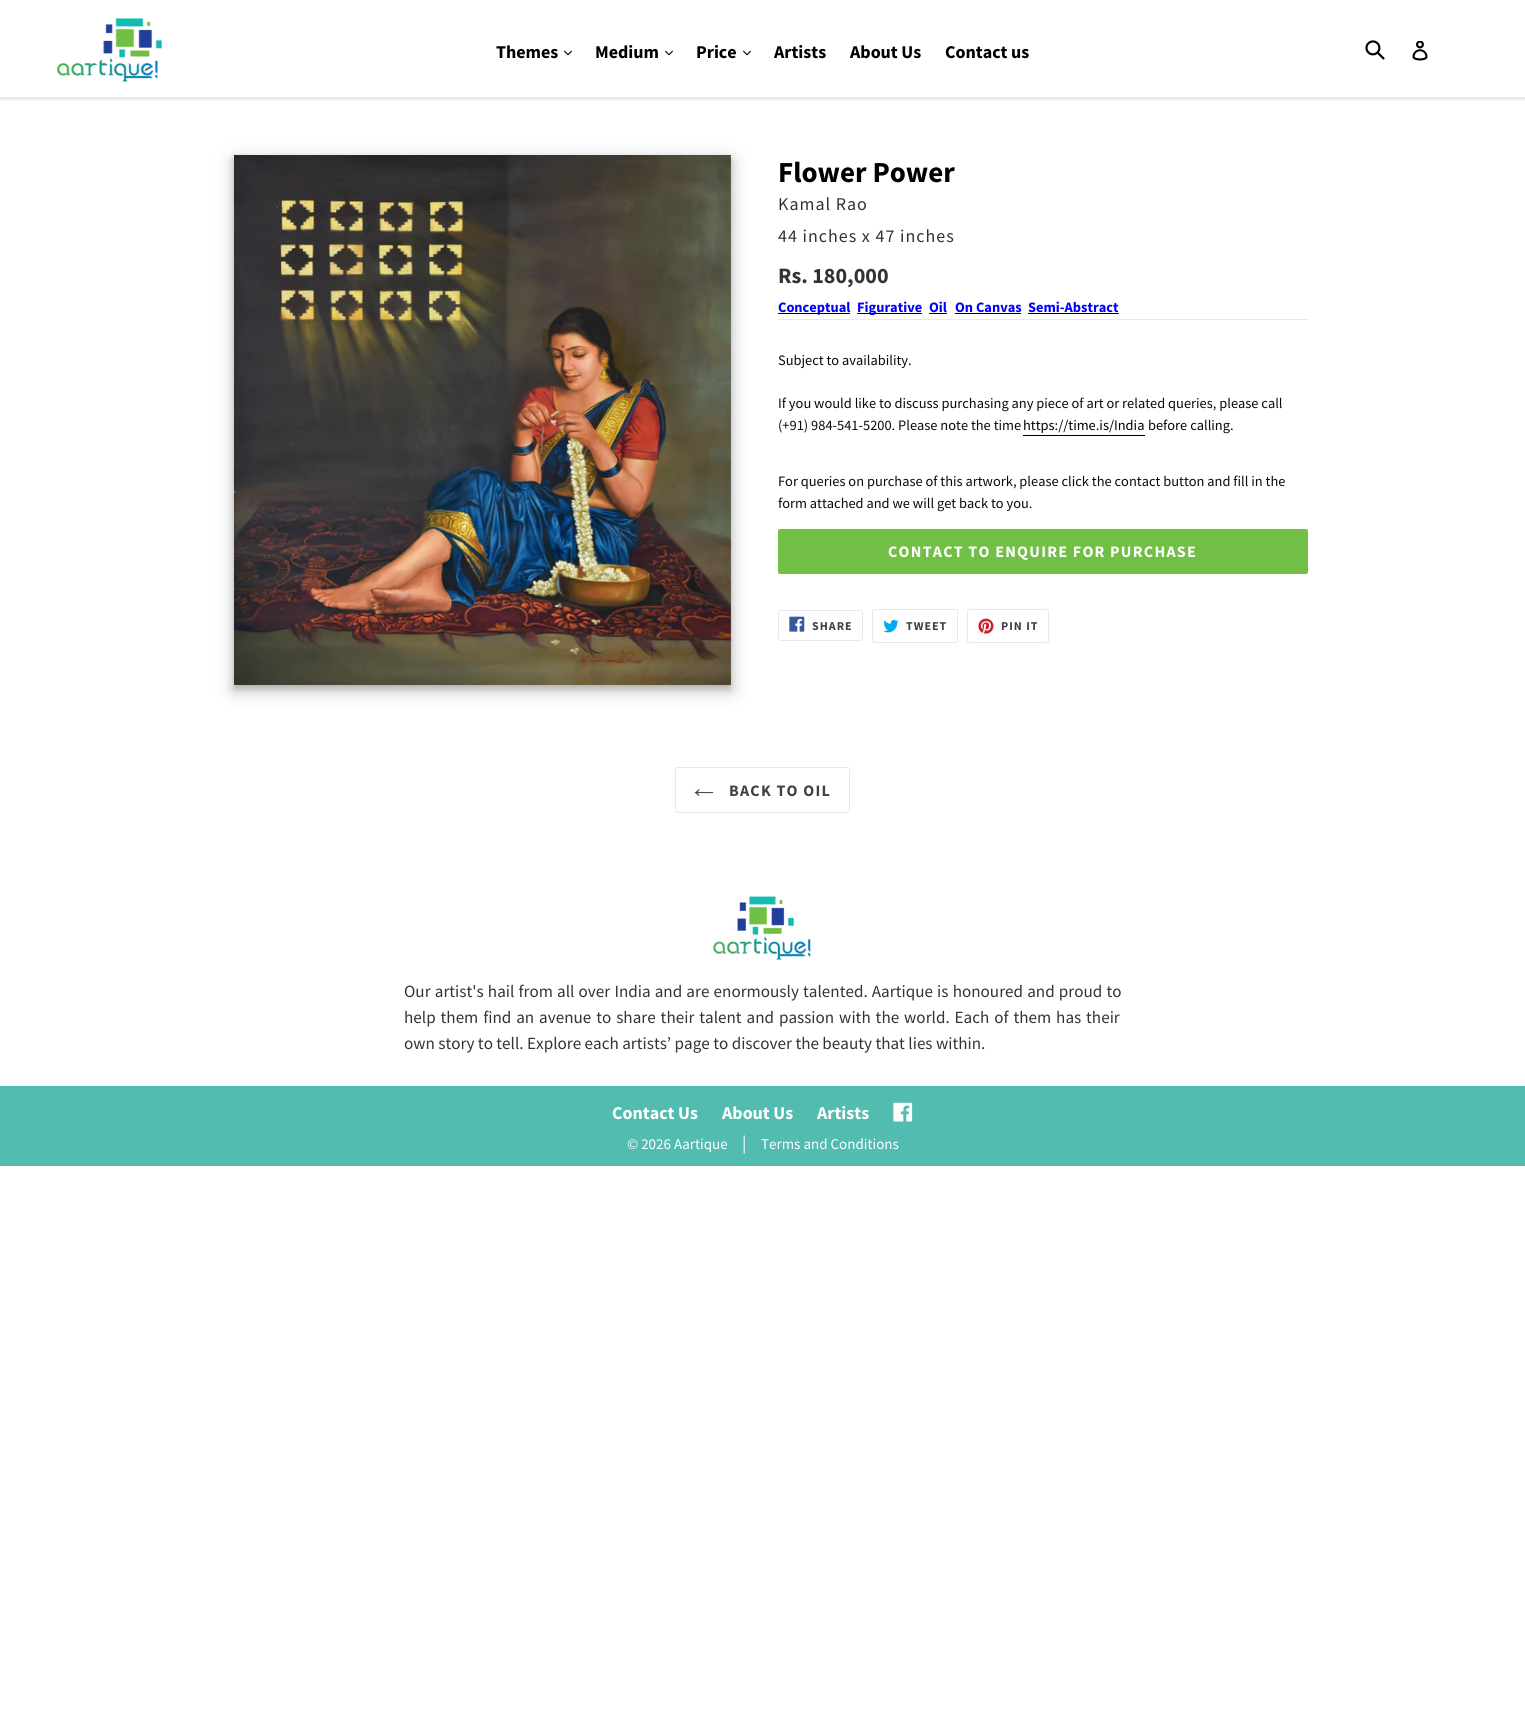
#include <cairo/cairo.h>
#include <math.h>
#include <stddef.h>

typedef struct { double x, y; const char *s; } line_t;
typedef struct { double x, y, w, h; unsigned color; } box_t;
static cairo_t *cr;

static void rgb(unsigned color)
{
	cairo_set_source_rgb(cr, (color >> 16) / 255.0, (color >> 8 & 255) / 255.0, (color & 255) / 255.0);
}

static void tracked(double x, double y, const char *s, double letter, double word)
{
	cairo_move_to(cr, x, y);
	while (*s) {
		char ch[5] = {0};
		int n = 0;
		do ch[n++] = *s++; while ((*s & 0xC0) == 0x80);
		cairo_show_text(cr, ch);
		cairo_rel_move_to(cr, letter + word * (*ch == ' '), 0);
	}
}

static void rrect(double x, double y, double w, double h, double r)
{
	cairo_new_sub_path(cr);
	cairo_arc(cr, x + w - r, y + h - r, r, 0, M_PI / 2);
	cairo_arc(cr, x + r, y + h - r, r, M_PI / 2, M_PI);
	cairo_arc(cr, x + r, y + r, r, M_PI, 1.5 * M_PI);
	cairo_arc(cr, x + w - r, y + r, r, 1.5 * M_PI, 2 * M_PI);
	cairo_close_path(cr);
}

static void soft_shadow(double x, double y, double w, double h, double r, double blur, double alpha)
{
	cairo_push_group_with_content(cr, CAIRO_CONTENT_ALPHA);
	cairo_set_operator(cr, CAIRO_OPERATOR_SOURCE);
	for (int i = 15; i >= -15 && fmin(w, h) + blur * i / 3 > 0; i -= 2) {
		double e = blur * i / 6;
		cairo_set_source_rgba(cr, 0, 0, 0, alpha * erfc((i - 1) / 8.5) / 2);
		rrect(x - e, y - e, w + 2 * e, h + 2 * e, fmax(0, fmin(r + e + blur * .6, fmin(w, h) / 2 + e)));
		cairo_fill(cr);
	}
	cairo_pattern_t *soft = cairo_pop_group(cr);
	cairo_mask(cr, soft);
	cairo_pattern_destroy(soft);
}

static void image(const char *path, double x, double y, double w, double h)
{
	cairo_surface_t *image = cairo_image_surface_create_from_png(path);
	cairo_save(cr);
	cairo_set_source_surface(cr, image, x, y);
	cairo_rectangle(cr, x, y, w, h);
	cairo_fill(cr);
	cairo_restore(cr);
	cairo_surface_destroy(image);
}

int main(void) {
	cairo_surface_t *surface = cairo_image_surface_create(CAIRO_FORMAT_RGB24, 1525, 1714);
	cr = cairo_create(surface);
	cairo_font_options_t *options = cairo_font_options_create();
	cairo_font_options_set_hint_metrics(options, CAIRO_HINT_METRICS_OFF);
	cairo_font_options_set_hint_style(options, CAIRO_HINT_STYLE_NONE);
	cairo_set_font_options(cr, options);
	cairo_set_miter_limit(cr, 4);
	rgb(0xffffff);
	cairo_paint(cr);
	cairo_save(cr);
	cairo_rectangle(cr, 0, 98, 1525, 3);
	cairo_clip(cr);
	rgb(0x000000);
	soft_shadow(0, 1, 1525, 98, 0, 1.5, 0.15);
	cairo_restore(cr);
	rgb(0xe8e9eb);
	cairo_rectangle(cr, 0, 97, 1525, 1);
	cairo_fill(cr);
	image("img/1.png", 57, 18, 105, 64);
	image("img/2.png", 564, 50, 8, 6);
	image("img/2.png", 665, 50, 8, 6);
	image("img/2.png", 743, 50, 8, 6);
	image("img/3.png", 1365, 40, 20, 20);
	image("img/4.png", 1412, 41, 16, 20);
	rgb(0x000000);
	soft_shadow(234, 161, 497, 530, 0, 10, 0.19);
	soft_shadow(234, 159, 497, 530, 0, 4, 0.2);
	image("img/5.png", 234, 155, 497, 530);
	{
		static const box_t items[] = {
			{778, 313, 72, 1, 0x000000},
			{857, 313, 65, 1, 0x000000},
			{929, 313, 18, 1, 0x000000},
			{955, 313, 66, 1, 0x000000},
			{1028, 313, 91, 1, 0x000000},
			{778, 319, 530, 1, 0xe8e9eb},
			{1023, 435, 122, 1, 0x000000},
		};
		for (size_t i = 0; i < sizeof items / sizeof *items; i++) {
			rgb(items[i].color);
			cairo_rectangle(cr, items[i].x, items[i].y, items[i].w, items[i].h);
			cairo_fill(cr);
		}
	}
	rgb(0x71bf44);
	rrect(778, 529, 530, 45, 2);
	cairo_fill(cr);
	rrect(778.5, 610.5, 84, 30, 1.5);
	rgb(0xe8e9eb);
	cairo_set_line_width(cr, 1);
	cairo_stroke(cr);
	image("img/6.png", 789, 616, 16, 16);
	rrect(872.5, 609.5, 85, 33, 1.5);
	cairo_stroke(cr);
	image("img/7.png", 883, 619, 16, 14);
	rrect(967.5, 609.5, 81, 33, 1.5);
	cairo_stroke(cr);
	image("img/8.png", 978, 618, 16, 16);
	rrect(675.5, 767.5, 174, 45, 1.5);
	cairo_stroke(cr);
	image("img/9.png", 694, 789, 20, 8);
	image("img/10.png", 713, 896, 98, 64);
	rgb(0x52bcb1);
	cairo_rectangle(cr, 0, 1086, 1525, 80);
	cairo_fill(cr);
	image("img/11.png", 893, 1102, 20, 20);
	cairo_select_font_face(cr, "Source Sans Pro", CAIRO_FONT_SLANT_NORMAL, CAIRO_FONT_WEIGHT_BOLD);
	cairo_set_font_size(cr, 18);
	rgb(0x000000);
	{
		static const line_t items[] = {
			{496, 58, "Themes"},
			{595, 58, "Medium"},
			{696, 58, "Price"},
			{774, 58, "Artists"},
			{850, 58, "About Us"},
			{945, 58, "Contact us"},
		};
		for (size_t i = 0; i < sizeof items / sizeof *items; i++) {
			cairo_move_to(cr, items[i].x, items[i].y);
			cairo_show_text(cr, items[i].s);
		}
	}
	cairo_set_font_size(cr, 29);
	cairo_move_to(cr, 778, 182);
	cairo_show_text(cr, "Flower Power");
	cairo_select_font_face(cr, "Source Sans Pro", CAIRO_FONT_SLANT_NORMAL, CAIRO_FONT_WEIGHT_NORMAL);
	cairo_set_font_size(cr, 18);
	rgb(0x333333);
	tracked(778, 210, "Kamal Rao", 1, 0);
	tracked(778, 242, "44 inches x 47 inches", 1, 0);
	cairo_select_font_face(cr, "Source Sans Pro", CAIRO_FONT_SLANT_NORMAL, CAIRO_FONT_WEIGHT_BOLD);
	cairo_set_font_size(cr, 22);
	cairo_move_to(cr, 778, 283);
	cairo_show_text(cr, "Rs. 180,000");
	cairo_set_font_size(cr, 14.4);
	rgb(0x0000ff);
	{
		static const line_t items[] = {
			{778, 312, "Conceptual"},
			{857, 312, "Figurative"},
			{929, 312, "Oil"},
			{955, 312, "On Canvas"},
			{1028, 312, "Semi-Abstract"},
		};
		for (size_t i = 0; i < sizeof items / sizeof *items; i++) {
			cairo_move_to(cr, items[i].x, items[i].y);
			cairo_show_text(cr, items[i].s);
		}
	}
	cairo_select_font_face(cr, "Source Sans Pro", CAIRO_FONT_SLANT_NORMAL, CAIRO_FONT_WEIGHT_NORMAL);
	rgb(0x0a0a0a);
	{
		static const line_t items[] = {
			{778, 365, "Subject to availability."},
			{778, 408, "If you would like to discuss purchasing any piece of art or related queries, please call"},
			{778, 430, "(+91) 984-541-5200. Please note the time"},
		};
		for (size_t i = 0; i < sizeof items / sizeof *items; i++) {
			cairo_move_to(cr, items[i].x, items[i].y);
			cairo_show_text(cr, items[i].s);
		}
	}
	rgb(0x000000);
	cairo_move_to(cr, 1023, 430);
	cairo_show_text(cr, "https://time.is/India");
	rgb(0x0a0a0a);
	{
		static const line_t items[] = {
			{1148, 430, "before calling."},
			{778, 486, "For queries on purchase of this artwork, please click the contact button and fill in the"},
			{778, 508, "form attached and we will get back to you."},
		};
		for (size_t i = 0; i < sizeof items / sizeof *items; i++) {
			cairo_move_to(cr, items[i].x, items[i].y);
			cairo_show_text(cr, items[i].s);
		}
	}
	cairo_select_font_face(cr, "Source Sans Pro", CAIRO_FONT_SLANT_NORMAL, CAIRO_FONT_WEIGHT_BOLD);
	cairo_set_font_size(cr, 16);
	rgb(0xffffff);
	tracked(888, 557, "CONTACT TO ENQUIRE FOR PURCHASE", 1.25, 0);
	cairo_set_font_size(cr, 12);
	rgb(0x3d4246);
	{
		static const line_t items[] = {
			{812, 630, "SHARE"},
			{906, 630, "TWEET"},
			{1001, 630, "PIN IT"},
		};
		for (size_t i = 0; i < sizeof items / sizeof *items; i++) {
			tracked(items[i].x, items[i].y, items[i].s, 1, 0);
		}
	}
	cairo_set_font_size(cr, 16);
	tracked(729, 796, "BACK TO OIL", 1.25, 0);
	cairo_select_font_face(cr, "Source Sans Pro", CAIRO_FONT_SLANT_NORMAL, CAIRO_FONT_WEIGHT_NORMAL);
	cairo_set_font_size(cr, 17.1);
	rgb(0x333333);
	tracked(404, 997, "Our artist's hail from all over India and are enormously talented. Aartique is honoured and proud to", 0, 0.75);
	tracked(404, 1023, "help them find an avenue to share their talent and passion with the world. Each of them has their", 0, 1.5);
	cairo_move_to(cr, 404, 1049);
	cairo_show_text(cr, "own story to tell. Explore each artists’ page to discover the beauty that lies within.");
	cairo_select_font_face(cr, "Source Sans Pro", CAIRO_FONT_SLANT_NORMAL, CAIRO_FONT_WEIGHT_BOLD);
	cairo_set_font_size(cr, 18);
	rgb(0xffffff);
	{
		static const line_t items[] = {
			{612, 1119, "Contact Us"},
			{722, 1119, "About Us"},
			{817, 1119, "Artists"},
		};
		for (size_t i = 0; i < sizeof items / sizeof *items; i++) {
			cairo_move_to(cr, items[i].x, items[i].y);
			cairo_show_text(cr, items[i].s);
		}
	}
	cairo_select_font_face(cr, "Source Sans Pro", CAIRO_FONT_SLANT_NORMAL, CAIRO_FONT_WEIGHT_NORMAL);
	cairo_set_font_size(cr, 15);
	cairo_move_to(cr, 627, 1149);
	cairo_show_text(cr, "© 2026 Aartique");
	cairo_set_font_size(cr, 18);
	cairo_move_to(cr, 742, 1149);
	cairo_show_text(cr, "|");
	cairo_set_font_size(cr, 15);
	cairo_move_to(cr, 761, 1149);
	cairo_show_text(cr, "Terms and Conditions");
	cairo_surface_write_to_png(surface, "page.png");
	cairo_font_options_destroy(options);
	cairo_destroy(cr);
	cairo_surface_destroy(surface);
	return 0;
}
